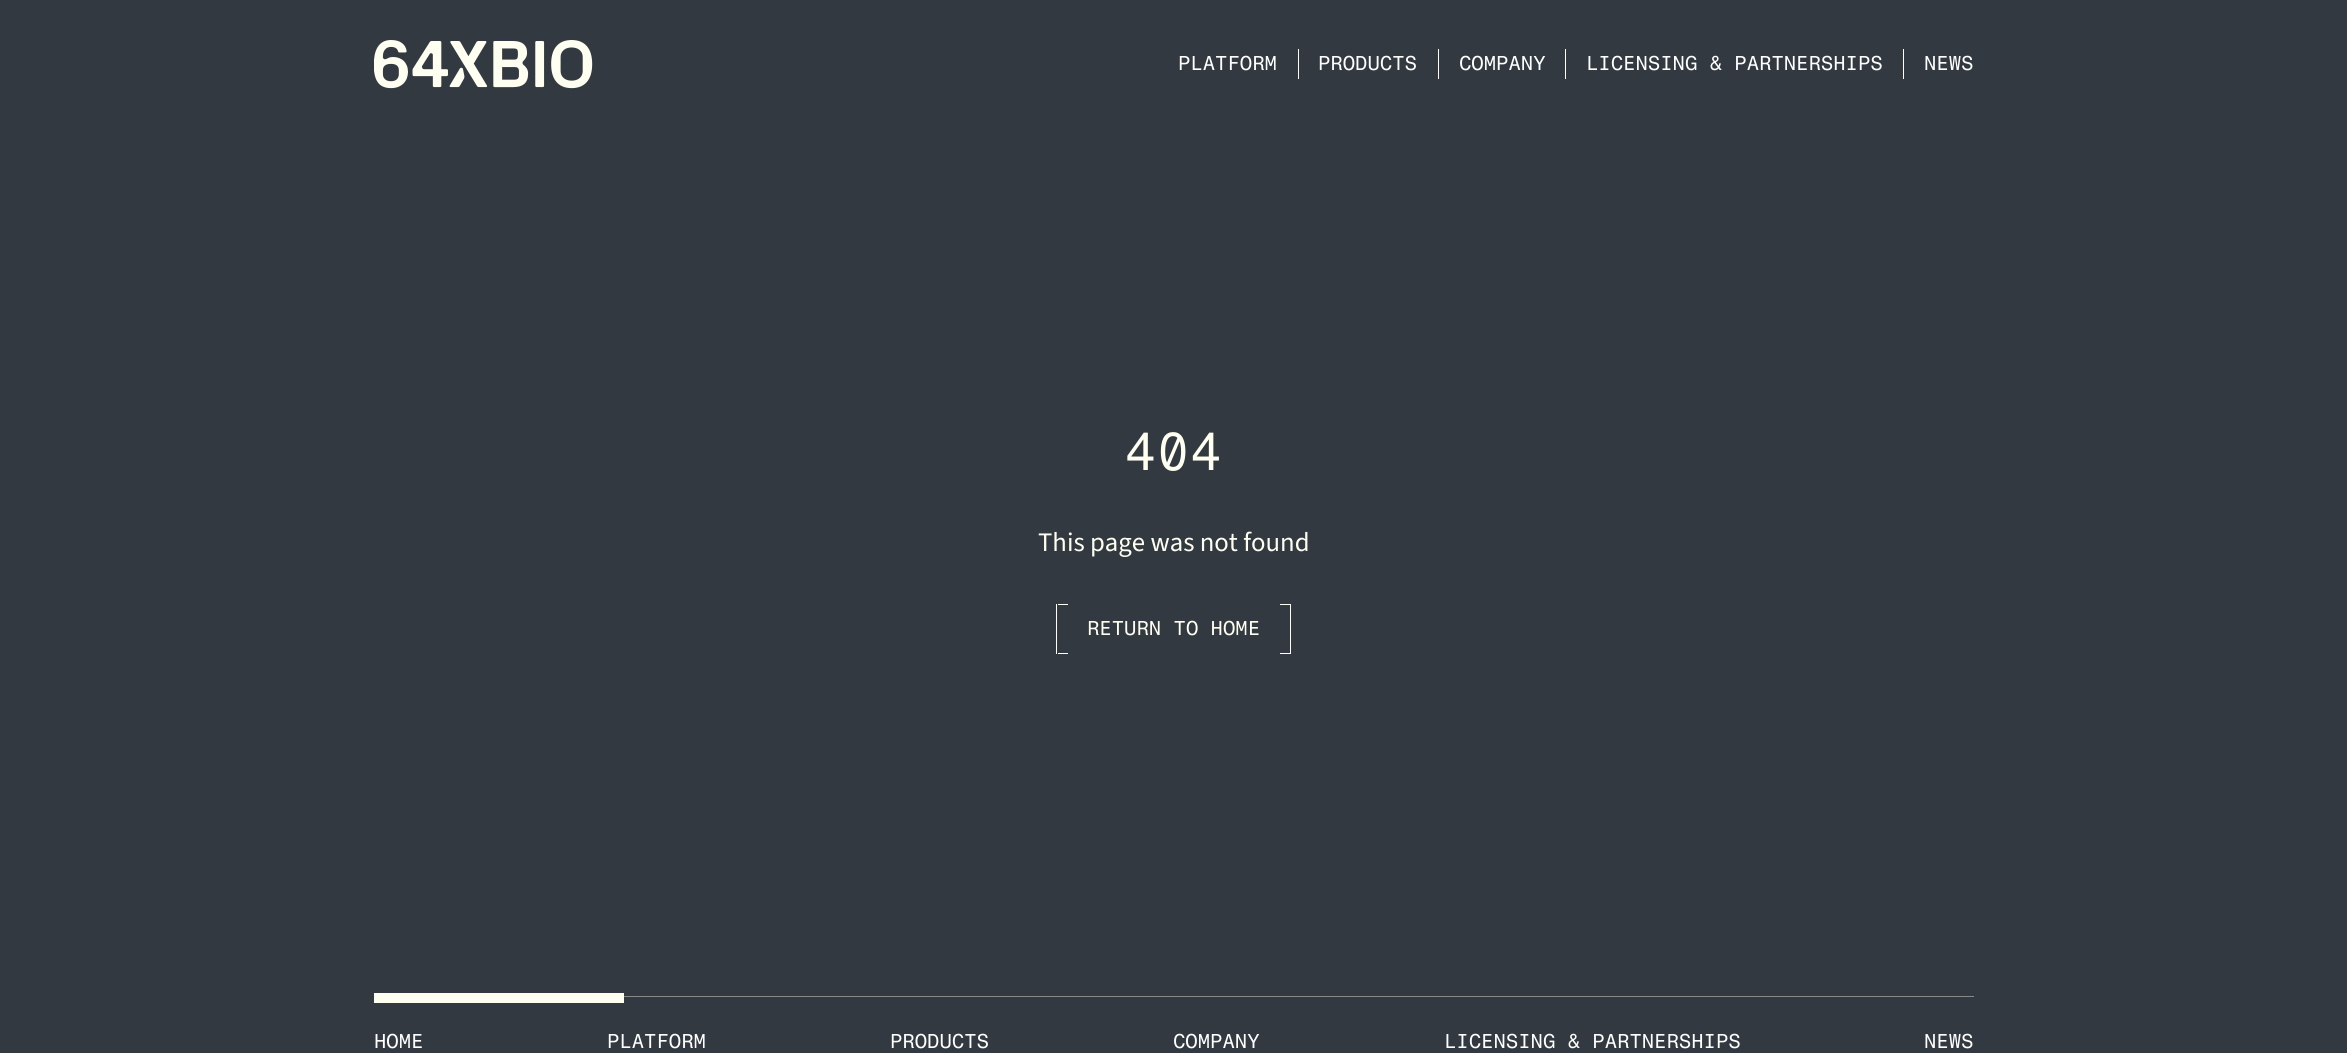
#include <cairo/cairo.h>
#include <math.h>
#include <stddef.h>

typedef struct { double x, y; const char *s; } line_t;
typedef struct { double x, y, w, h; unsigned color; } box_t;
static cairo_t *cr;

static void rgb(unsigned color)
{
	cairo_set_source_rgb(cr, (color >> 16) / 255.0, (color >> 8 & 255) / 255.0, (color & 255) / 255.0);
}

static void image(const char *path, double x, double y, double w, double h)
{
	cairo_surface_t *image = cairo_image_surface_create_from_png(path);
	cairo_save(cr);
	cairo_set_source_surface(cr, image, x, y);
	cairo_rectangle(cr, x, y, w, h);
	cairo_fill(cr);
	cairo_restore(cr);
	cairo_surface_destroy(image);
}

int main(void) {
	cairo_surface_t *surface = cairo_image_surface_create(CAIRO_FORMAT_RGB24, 2347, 1053);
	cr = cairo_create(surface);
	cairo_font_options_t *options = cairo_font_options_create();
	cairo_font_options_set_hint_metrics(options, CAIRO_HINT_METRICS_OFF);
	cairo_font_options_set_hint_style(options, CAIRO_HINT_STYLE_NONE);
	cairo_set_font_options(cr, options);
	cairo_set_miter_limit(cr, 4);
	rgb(0x323940);
	cairo_paint(cr);
	image("img/1.png", 374, 40, 219, 49);
	{
		static const box_t items[] = {
			{1298, 49, 1, 30, 0xfffff1},
			{1438, 49, 1, 30, 0xfffff1},
			{1565, 49, 1, 30, 0xfffff1},
			{1903, 49, 1, 30, 0xfffff1},
			{1290, 604, 1, 50, 0xfffff1},
			{1056, 604, 1, 50, 0xfffff1},
			{1058, 604, 10, 1, 0xfffff1},
			{1058, 653, 10, 1, 0xfffff1},
			{1280, 604, 10, 1, 0xfffff1},
			{1280, 653, 10, 1, 0xfffff1},
			{624, 996, 1350, 1, 0x8a8a8a},
			{374, 993, 250, 10, 0xfffff1},
		};
		for (size_t i = 0; i < sizeof items / sizeof *items; i++) {
			rgb(items[i].color);
			cairo_rectangle(cr, items[i].x, items[i].y, items[i].w, items[i].h);
			cairo_fill(cr);
		}
	}
	cairo_select_font_face(cr, "Fragment Mono", CAIRO_FONT_SLANT_NORMAL, CAIRO_FONT_WEIGHT_NORMAL);
	cairo_set_font_size(cr, 20);
	rgb(0xffffff);
	{
		static const line_t items[] = {
			{1178, 70, "PLATFORM"},
			{1318, 70, "PRODUCTS"},
			{1459, 70, "COMPANY"},
			{1586, 70, "LICENSING & PARTNERSHIPS"},
			{1924, 70, "NEWS"},
		};
		for (size_t i = 0; i < sizeof items / sizeof *items; i++) {
			cairo_move_to(cr, items[i].x, items[i].y);
			cairo_show_text(cr, items[i].s);
		}
	}
	cairo_set_font_size(cr, 53);
	rgb(0xfffff1);
	cairo_move_to(cr, 1124, 470);
	cairo_show_text(cr, "404");
	cairo_select_font_face(cr, "Source Sans 3 ExtraLight", CAIRO_FONT_SLANT_NORMAL, CAIRO_FONT_WEIGHT_NORMAL);
	cairo_set_font_size(cr, 26.75);
	cairo_move_to(cr, 1038, 551);
	cairo_show_text(cr, "This page was not found");
	cairo_select_font_face(cr, "Fragment Mono", CAIRO_FONT_SLANT_NORMAL, CAIRO_FONT_WEIGHT_NORMAL);
	cairo_set_font_size(cr, 20);
	cairo_move_to(cr, 1087, 635);
	cairo_show_text(cr, "RETURN TO HOME");
	rgb(0xffffff);
	{
		static const line_t items[] = {
			{374, 1048, "HOME"},
			{607, 1048, "PLATFORM"},
			{890, 1048, "PRODUCTS"},
			{1173, 1048, "COMPANY"},
			{1444, 1048, "LICENSING & PARTNERSHIPS"},
			{1924, 1048, "NEWS"},
		};
		for (size_t i = 0; i < sizeof items / sizeof *items; i++) {
			cairo_move_to(cr, items[i].x, items[i].y);
			cairo_show_text(cr, items[i].s);
		}
	}
	cairo_surface_write_to_png(surface, "page.png");
	cairo_font_options_destroy(options);
	cairo_destroy(cr);
	cairo_surface_destroy(surface);
	return 0;
}
